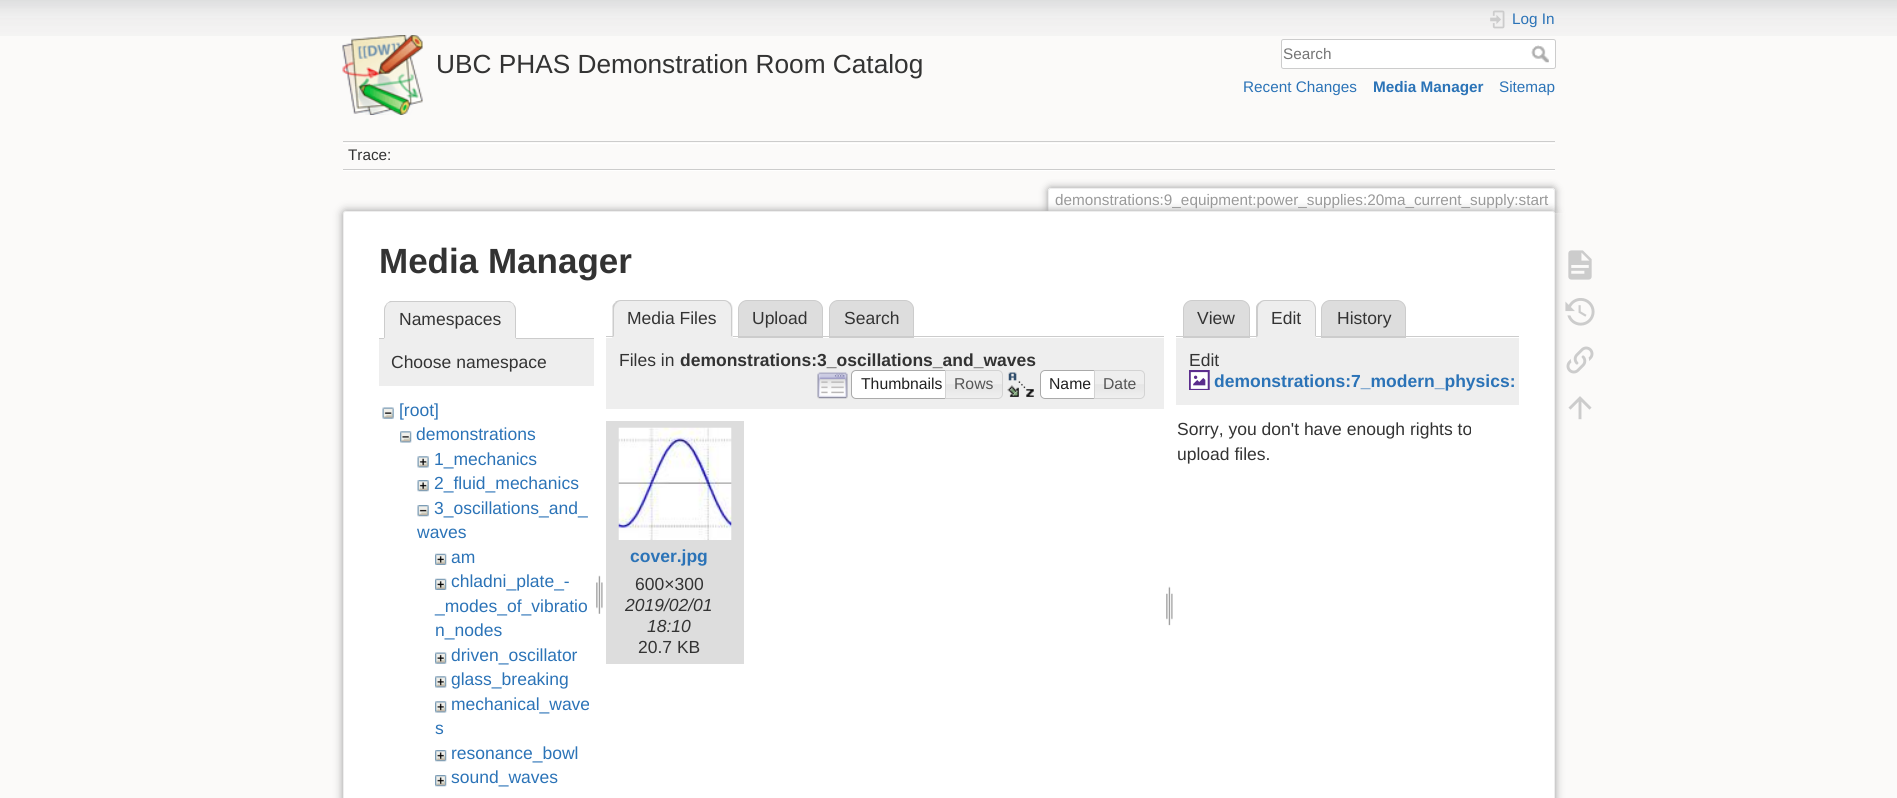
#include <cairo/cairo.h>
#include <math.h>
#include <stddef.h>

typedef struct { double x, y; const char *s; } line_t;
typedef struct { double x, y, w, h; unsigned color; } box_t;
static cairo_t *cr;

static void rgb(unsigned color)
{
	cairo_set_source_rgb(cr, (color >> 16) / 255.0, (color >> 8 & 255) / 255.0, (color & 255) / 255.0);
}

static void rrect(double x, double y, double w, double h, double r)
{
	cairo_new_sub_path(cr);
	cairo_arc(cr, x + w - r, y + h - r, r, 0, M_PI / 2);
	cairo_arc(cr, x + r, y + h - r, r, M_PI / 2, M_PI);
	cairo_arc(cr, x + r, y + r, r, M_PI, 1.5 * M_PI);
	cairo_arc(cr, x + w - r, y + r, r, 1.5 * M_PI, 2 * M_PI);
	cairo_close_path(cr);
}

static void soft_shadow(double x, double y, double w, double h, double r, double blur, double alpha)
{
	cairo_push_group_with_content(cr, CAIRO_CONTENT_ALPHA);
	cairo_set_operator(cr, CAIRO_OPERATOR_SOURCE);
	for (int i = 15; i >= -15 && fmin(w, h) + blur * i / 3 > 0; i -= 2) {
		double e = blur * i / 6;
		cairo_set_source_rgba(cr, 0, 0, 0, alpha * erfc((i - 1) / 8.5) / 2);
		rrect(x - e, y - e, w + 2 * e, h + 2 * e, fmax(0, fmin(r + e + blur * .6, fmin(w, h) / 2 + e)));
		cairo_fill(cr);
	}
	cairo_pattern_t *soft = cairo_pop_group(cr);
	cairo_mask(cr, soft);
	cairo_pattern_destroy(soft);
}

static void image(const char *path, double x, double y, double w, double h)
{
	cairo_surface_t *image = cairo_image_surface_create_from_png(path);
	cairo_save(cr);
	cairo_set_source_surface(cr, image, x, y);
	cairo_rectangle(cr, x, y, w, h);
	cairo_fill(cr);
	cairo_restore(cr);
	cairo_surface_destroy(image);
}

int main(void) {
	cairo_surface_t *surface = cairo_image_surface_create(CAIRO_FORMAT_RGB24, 1897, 798);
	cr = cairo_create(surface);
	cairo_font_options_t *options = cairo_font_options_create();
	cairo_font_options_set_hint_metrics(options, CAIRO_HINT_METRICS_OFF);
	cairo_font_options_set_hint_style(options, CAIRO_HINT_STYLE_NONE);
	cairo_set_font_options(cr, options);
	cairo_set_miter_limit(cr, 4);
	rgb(0xfbfaf9);
	cairo_paint(cr);
	image("img/1.png", 0, 0, 1897, 36);
	image("img/2.png", 342, 35, 81, 80);
	image("img/3.png", 1490, 10, 15, 19);
	rgb(0xffffff);
	rrect(1281.5, 39.5, 274, 29, 2);
	cairo_fill_preserve(cr);
	rgb(0xcccccc);
	cairo_set_line_width(cr, 1);
	cairo_stroke(cr);
	image("img/4.png", 1531, 45, 18, 18);
	{
		static const box_t items[] = {
			{343, 141, 1212, 1, 0xcccccc},
			{343, 170, 1212, 1, 0xffffff},
			{343, 143, 1212, 1, 0xffffff},
			{343, 169, 1212, 1, 0xcccccc},
		};
		for (size_t i = 0; i < sizeof items / sizeof *items; i++) {
			rgb(items[i].color);
			cairo_rectangle(cr, items[i].x, items[i].y, items[i].w, items[i].h);
			cairo_fill(cr);
		}
	}
	cairo_save(cr);
	cairo_rectangle(cr, 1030, 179, 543, 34);
	cairo_clip(cr);
	rgb(0x999999);
	soft_shadow(1048, 188, 507, 25, 2.5, 4, 1);
	cairo_restore(cr);
	rgb(0xffffff);
	cairo_new_path(cr);
	cairo_move_to(cr, 1050, 189);
	cairo_line_to(cr, 1553, 189);
	cairo_curve_to(cr, 1553.5, 189, 1554, 189.5, 1554, 190);
	cairo_line_to(cr, 1554, 213);
	cairo_line_to(cr, 1049, 213);
	cairo_line_to(cr, 1049, 190);
	cairo_curve_to(cr, 1049, 189.5, 1049.5, 189, 1050, 189);
	cairo_close_path(cr);
	cairo_fill(cr);
	{
		static const box_t items[] = {
			{1049, 188, 505, 1, 0xeeeeee},
			{1554, 189, 1, 24, 0xeeeeee},
			{1048, 189, 1, 24, 0xeeeeee},
		};
		for (size_t i = 0; i < sizeof items / sizeof *items; i++) {
			rgb(items[i].color);
			cairo_rectangle(cr, items[i].x, items[i].y, items[i].w, items[i].h);
			cairo_fill(cr);
		}
	}
	rgb(0x999999);
	soft_shadow(343, 211, 1212, 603, 2.5, 4.5, 1);
	rgb(0xffffff);
	rrect(343.5, 211.5, 1211, 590, 2);
	cairo_fill_preserve(cr);
	rgb(0xeeeeee);
	cairo_stroke(cr);
	rgb(0xcccccc);
	cairo_rectangle(cr, 379, 338, 215, 1);
	cairo_fill(cr);
	rgb(0xeeeeee);
	cairo_new_path(cr);
	cairo_move_to(cr, 393, 301);
	cairo_line_to(cr, 507, 301);
	cairo_curve_to(cr, 512, 301, 516, 305, 516, 310);
	cairo_line_to(cr, 516, 339);
	cairo_line_to(cr, 384, 339);
	cairo_line_to(cr, 384, 310);
	cairo_curve_to(cr, 384, 305, 388, 301, 393, 301);
	cairo_close_path(cr);
	cairo_fill(cr);
	rgb(0xcccccc);
	cairo_new_path(cr);
	cairo_move_to(cr, 392, 302);
	cairo_curve_to(cr, 390, 302, 388, 303, 387, 304);
	cairo_line_to(cr, 386, 304);
	cairo_line_to(cr, 390, 301);
	cairo_line_to(cr, 510, 301);
	cairo_line_to(cr, 514, 304);
	cairo_line_to(cr, 513, 304);
	cairo_curve_to(cr, 512, 303, 510, 302, 508, 302);
	cairo_close_path(cr);
	cairo_fill(cr);
	cairo_new_path(cr);
	cairo_move_to(cr, 513.5, 304);
	cairo_curve_to(cr, 515, 305.5, 516, 307.5, 516, 310);
	cairo_line_to(cr, 516, 338.5);
	cairo_line_to(cr, 515, 337.5);
	cairo_line_to(cr, 515, 310);
	cairo_curve_to(cr, 515, 308, 514, 306, 513, 304.5);
	cairo_close_path(cr);
	cairo_fill(cr);
	cairo_new_path(cr);
	cairo_move_to(cr, 384, 338.5);
	cairo_line_to(cr, 384, 310);
	cairo_curve_to(cr, 384, 307.5, 385, 305.5, 386.5, 304);
	cairo_line_to(cr, 387, 304.5);
	cairo_curve_to(cr, 386, 306, 385, 308, 385, 310);
	cairo_line_to(cr, 385, 337.5);
	cairo_close_path(cr);
	cairo_fill(cr);
	rgb(0xeeeeee);
	cairo_rectangle(cr, 379, 339, 215, 47);
	cairo_fill(cr);
	image("img/5.png", 382, 407, 12, 12);
	image("img/6.png", 400, 431, 12, 12);
	image("img/7.png", 417, 456, 12, 12);
	image("img/8.png", 417, 480, 12, 12);
	image("img/9.png", 417, 505, 12, 12);
	image("img/10.png", 435, 553, 12, 12);
	image("img/10.png", 435, 578, 12, 12);
	image("img/11.png", 435, 652, 12, 12);
	image("img/12.png", 435, 676, 12, 12);
	image("img/12.png", 435, 701, 12, 12);
	image("img/13.png", 435, 750, 12, 12);
	image("img/14.png", 435, 775, 12, 12);
	image("img/15.png", 596, 575, 7, 39);
	rgb(0xdddddd);
	cairo_new_path(cr);
	cairo_move_to(cr, 747, 300.5);
	cairo_line_to(cr, 814, 300.5);
	cairo_curve_to(cr, 818.5, 300.5, 822.5, 304.5, 822.5, 309);
	cairo_line_to(cr, 822.5, 337.5);
	cairo_line_to(cr, 738.5, 337.5);
	cairo_line_to(cr, 738.5, 309);
	cairo_curve_to(cr, 738.5, 304.5, 742.5, 300.5, 747, 300.5);
	cairo_close_path(cr);
	cairo_fill_preserve(cr);
	rgb(0xcccccc);
	cairo_stroke(cr);
	rgb(0xdddddd);
	cairo_new_path(cr);
	cairo_move_to(cr, 838, 300.5);
	cairo_line_to(cr, 905, 300.5);
	cairo_curve_to(cr, 909.5, 300.5, 913.5, 304.5, 913.5, 309);
	cairo_line_to(cr, 913.5, 337.5);
	cairo_line_to(cr, 829.5, 337.5);
	cairo_line_to(cr, 829.5, 309);
	cairo_curve_to(cr, 829.5, 304.5, 833.5, 300.5, 838, 300.5);
	cairo_close_path(cr);
	cairo_fill_preserve(cr);
	rgb(0xcccccc);
	cairo_stroke(cr);
	cairo_rectangle(cr, 606, 336, 558, 1);
	cairo_fill(cr);
	rgb(0xeeeeee);
	cairo_new_path(cr);
	cairo_move_to(cr, 622, 300);
	cairo_line_to(cr, 724, 300);
	cairo_curve_to(cr, 729, 300, 733, 304, 733, 309);
	cairo_line_to(cr, 733, 338);
	cairo_line_to(cr, 613, 338);
	cairo_line_to(cr, 613, 309);
	cairo_curve_to(cr, 613, 304, 617, 300, 622, 300);
	cairo_close_path(cr);
	cairo_fill(cr);
	rgb(0xcccccc);
	cairo_new_path(cr);
	cairo_move_to(cr, 621, 300);
	cairo_curve_to(cr, 619, 300, 616, 301, 615, 302);
	cairo_line_to(cr, 616, 304);
	cairo_curve_to(cr, 617, 302, 619, 301, 621, 301);
	cairo_line_to(cr, 724, 301);
	cairo_curve_to(cr, 726, 301, 728, 302, 729, 304);
	cairo_line_to(cr, 730, 303);
	cairo_curve_to(cr, 728, 301, 726, 300, 724, 300);
	cairo_close_path(cr);
	cairo_fill(cr);
	cairo_new_path(cr);
	cairo_move_to(cr, 730, 302.5);
	cairo_curve_to(cr, 731, 304, 732, 306.5, 732, 309);
	cairo_line_to(cr, 732, 337);
	cairo_line_to(cr, 731, 336);
	cairo_line_to(cr, 731, 309);
	cairo_curve_to(cr, 731, 307, 730, 305, 729, 303.5);
	cairo_close_path(cr);
	cairo_fill(cr);
	rgb(0xeeeeee);
	cairo_new_path(cr);
	cairo_move_to(cr, 732, 337);
	cairo_line_to(cr, 732, 338);
	cairo_line_to(cr, 612, 338);
	cairo_line_to(cr, 614, 336);
	cairo_line_to(cr, 731, 336);
	cairo_close_path(cr);
	cairo_fill(cr);
	rgb(0xcccccc);
	cairo_new_path(cr);
	cairo_move_to(cr, 612.5, 337.5);
	cairo_line_to(cr, 612.5, 306);
	cairo_curve_to(cr, 613, 304.5, 614, 303.5, 615, 302.5);
	cairo_line_to(cr, 616, 303.5);
	cairo_curve_to(cr, 615, 305, 614, 307, 614, 309);
	cairo_line_to(cr, 614, 336);
	cairo_close_path(cr);
	cairo_fill(cr);
	rgb(0xeeeeee);
	cairo_rectangle(cr, 606, 338, 558, 71);
	cairo_fill(cr);
	image("img/16.png", 817, 372, 31, 27);
	rgb(0xffffff);
	cairo_new_path(cr);
	cairo_move_to(cr, 856, 370.5);
	cairo_line_to(cr, 950.5, 370.5);
	cairo_line_to(cr, 950.5, 398.5);
	cairo_line_to(cr, 856, 398.5);
	cairo_curve_to(cr, 853.5, 398.5, 851.5, 396.5, 851.5, 394);
	cairo_line_to(cr, 851.5, 375);
	cairo_curve_to(cr, 851.5, 372.5, 853.5, 370.5, 856, 370.5);
	cairo_close_path(cr);
	cairo_fill_preserve(cr);
	rgb(0xaaaaaa);
	cairo_stroke(cr);
	image("img/17.png", 946, 370, 56, 29);
	cairo_new_path(cr);
	cairo_move_to(cr, 945.5, 370.5);
	cairo_line_to(cr, 998, 370.5);
	cairo_curve_to(cr, 1000.5, 370.5, 1002.5, 372.5, 1002.5, 375);
	cairo_line_to(cr, 1002.5, 394);
	cairo_curve_to(cr, 1002.5, 396.5, 1000.5, 398.5, 998, 398.5);
	cairo_line_to(cr, 945.5, 398.5);
	cairo_close_path(cr);
	rgb(0xd3d3d3);
	cairo_stroke(cr);
	image("img/18.png", 1007, 372, 27, 25);
	rgb(0xffffff);
	cairo_new_path(cr);
	cairo_move_to(cr, 1045, 370);
	cairo_line_to(cr, 1100, 370);
	cairo_line_to(cr, 1100, 399);
	cairo_line_to(cr, 1045, 399);
	cairo_curve_to(cr, 1042, 399, 1040, 397, 1040, 394);
	cairo_line_to(cr, 1040, 375);
	cairo_curve_to(cr, 1040, 372, 1042, 370, 1045, 370);
	cairo_close_path(cr);
	cairo_fill(cr);
	rgb(0xfbfbfb);
	cairo_rectangle(cr, 1041, 371, 1, 1);
	cairo_fill(cr);
	cairo_new_path(cr);
	cairo_move_to(cr, 1045, 370.5);
	cairo_line_to(cr, 1099.5, 370.5);
	cairo_line_to(cr, 1099.5, 398.5);
	cairo_line_to(cr, 1045, 398.5);
	cairo_curve_to(cr, 1042.5, 398.5, 1040.5, 396.5, 1040.5, 394);
	cairo_line_to(cr, 1040.5, 375);
	cairo_curve_to(cr, 1040.5, 372.5, 1042.5, 370.5, 1045, 370.5);
	cairo_close_path(cr);
	rgb(0xaaaaaa);
	cairo_stroke(cr);
	image("img/19.png", 1093, 370, 52, 29);
	cairo_new_path(cr);
	cairo_move_to(cr, 1094.5, 370.5);
	cairo_line_to(cr, 1140, 370.5);
	cairo_curve_to(cr, 1142.5, 370.5, 1144.5, 372.5, 1144.5, 375);
	cairo_line_to(cr, 1144.5, 394);
	cairo_curve_to(cr, 1144.5, 396.5, 1142.5, 398.5, 1140, 398.5);
	cairo_line_to(cr, 1094.5, 398.5);
	cairo_close_path(cr);
	rgb(0xd3d3d3);
	cairo_stroke(cr);
	rgb(0xdddddd);
	cairo_rectangle(cr, 606, 421, 138, 243);
	cairo_fill(cr);
	image("img/20.png", 618, 427, 114, 113);
	image("img/21.png", 1166, 586, 7, 40);
	cairo_new_path(cr);
	cairo_move_to(cr, 1192, 300.5);
	cairo_line_to(cr, 1241, 300.5);
	cairo_curve_to(cr, 1245.5, 300.5, 1249.5, 304.5, 1249.5, 309);
	cairo_line_to(cr, 1249.5, 337.5);
	cairo_line_to(cr, 1183.5, 337.5);
	cairo_line_to(cr, 1183.5, 309);
	cairo_curve_to(cr, 1183.5, 304.5, 1187.5, 300.5, 1192, 300.5);
	cairo_close_path(cr);
	cairo_fill_preserve(cr);
	rgb(0xcccccc);
	cairo_stroke(cr);
	rgb(0xdddddd);
	cairo_new_path(cr);
	cairo_move_to(cr, 1330, 300.5);
	cairo_line_to(cr, 1397, 300.5);
	cairo_curve_to(cr, 1401.5, 300.5, 1405.5, 304.5, 1405.5, 309);
	cairo_line_to(cr, 1405.5, 337.5);
	cairo_line_to(cr, 1321.5, 337.5);
	cairo_line_to(cr, 1321.5, 309);
	cairo_curve_to(cr, 1321.5, 304.5, 1325.5, 300.5, 1330, 300.5);
	cairo_close_path(cr);
	cairo_fill_preserve(cr);
	rgb(0xcccccc);
	cairo_stroke(cr);
	cairo_rectangle(cr, 1176, 336, 343, 1);
	cairo_fill(cr);
	rgb(0xeeeeee);
	cairo_new_path(cr);
	cairo_move_to(cr, 1265, 300);
	cairo_line_to(cr, 1307, 300);
	cairo_curve_to(cr, 1312, 300, 1316, 304, 1316, 309);
	cairo_line_to(cr, 1316, 338);
	cairo_line_to(cr, 1256, 338);
	cairo_line_to(cr, 1256, 309);
	cairo_curve_to(cr, 1256, 304, 1260, 300, 1265, 300);
	cairo_close_path(cr);
	cairo_fill(cr);
	rgb(0xcccccc);
	cairo_new_path(cr);
	cairo_move_to(cr, 1265, 300);
	cairo_curve_to(cr, 1263, 300, 1260, 301, 1259, 303);
	cairo_line_to(cr, 1260, 304);
	cairo_curve_to(cr, 1261, 302, 1263, 301, 1265, 301);
	cairo_line_to(cr, 1308, 301);
	cairo_curve_to(cr, 1310, 301, 1312, 302, 1313, 303);
	cairo_line_to(cr, 1314, 303);
	cairo_curve_to(cr, 1312, 301, 1310, 300, 1308, 300);
	cairo_close_path(cr);
	cairo_fill(cr);
	cairo_new_path(cr);
	cairo_move_to(cr, 1313.5, 302.5);
	cairo_curve_to(cr, 1315, 304.5, 1316, 306.5, 1316, 309);
	cairo_line_to(cr, 1316, 337);
	cairo_line_to(cr, 1315, 336);
	cairo_line_to(cr, 1315, 309);
	cairo_curve_to(cr, 1315, 307, 1314, 305, 1313, 303.5);
	cairo_close_path(cr);
	cairo_fill(cr);
	rgb(0xeeeeee);
	cairo_new_path(cr);
	cairo_move_to(cr, 1316, 337);
	cairo_line_to(cr, 1256, 338);
	cairo_line_to(cr, 1258, 336);
	cairo_line_to(cr, 1315, 336);
	cairo_close_path(cr);
	cairo_fill(cr);
	rgb(0xcccccc);
	cairo_new_path(cr);
	cairo_move_to(cr, 1256, 337.5);
	cairo_line_to(cr, 1256, 307);
	cairo_curve_to(cr, 1256.5, 305, 1257.5, 303.5, 1259, 302.5);
	cairo_line_to(cr, 1260, 303.5);
	cairo_curve_to(cr, 1258.5, 305, 1258, 307, 1258, 309);
	cairo_line_to(cr, 1258, 336);
	cairo_close_path(cr);
	cairo_fill(cr);
	rgb(0xeeeeee);
	cairo_rectangle(cr, 1176, 338, 343, 67);
	cairo_fill(cr);
	image("img/22.png", 1189, 370, 21, 20);
	image("img/23.png", 1568, 250, 24, 30);
	image("img/24.png", 1565, 298, 30, 28);
	image("img/25.png", 1566, 346, 28, 28);
	image("img/26.png", 1568, 396, 24, 24);
	cairo_select_font_face(cr, "Liberation Sans", CAIRO_FONT_SLANT_NORMAL, CAIRO_FONT_WEIGHT_NORMAL);
	cairo_set_font_size(cr, 26.25);
	rgb(0x333333);
	cairo_move_to(cr, 436, 73);
	cairo_show_text(cr, "UBC PHAS Demonstration Room Catalog");
	cairo_set_font_size(cr, 15.3);
	rgb(0x2b73b7);
	cairo_move_to(cr, 1512, 24);
	cairo_show_text(cr, "Log In");
	rgb(0x757575);
	cairo_move_to(cr, 1283, 59);
	cairo_show_text(cr, "Search");
	rgb(0x2b73b7);
	cairo_move_to(cr, 1243, 92);
	cairo_show_text(cr, "Recent Changes");
	cairo_select_font_face(cr, "Liberation Sans", CAIRO_FONT_SLANT_NORMAL, CAIRO_FONT_WEIGHT_BOLD);
	cairo_move_to(cr, 1373, 92);
	cairo_show_text(cr, "Media Manager");
	cairo_select_font_face(cr, "Liberation Sans", CAIRO_FONT_SLANT_NORMAL, CAIRO_FONT_WEIGHT_NORMAL);
	cairo_move_to(cr, 1499, 92);
	cairo_show_text(cr, "Sitemap");
	rgb(0x333333);
	cairo_move_to(cr, 348, 160);
	cairo_show_text(cr, "Trace:");
	rgb(0x999999);
	cairo_move_to(cr, 1055, 205);
	cairo_show_text(cr, "demonstrations:9_equipment:power_supplies:20ma_current_supply:start");
	cairo_select_font_face(cr, "Liberation Sans", CAIRO_FONT_SLANT_NORMAL, CAIRO_FONT_WEIGHT_BOLD);
	cairo_set_font_size(cr, 35);
	rgb(0x333333);
	cairo_move_to(cr, 379, 273);
	cairo_show_text(cr, "Media Manager");
	cairo_select_font_face(cr, "Liberation Sans", CAIRO_FONT_SLANT_NORMAL, CAIRO_FONT_WEIGHT_NORMAL);
	cairo_set_font_size(cr, 17.5);
	cairo_move_to(cr, 399, 325);
	cairo_show_text(cr, "Namespaces");
	cairo_move_to(cr, 391, 368);
	cairo_show_text(cr, "Choose namespace");
	rgb(0x2b73b7);
	{
		static const line_t items[] = {
			{399, 416, "[root]"},
			{416, 440, "demonstrations"},
			{434, 465, "1_mechanics"},
			{434, 489, "2_fluid_mechanics"},
			{434, 514, "3_oscillations_and_"},
			{417, 538, "waves"},
			{451, 563, "am"},
			{451, 587, "chladni_plate_-"},
			{435, 612, "_modes_of_vibratio"},
			{435, 636, "n_nodes"},
			{451, 661, "driven_oscillator"},
			{451, 685, "glass_breaking"},
			{451, 710, "mechanical_wave"},
			{435, 734, "s"},
			{451, 759, "resonance_bowl"},
			{451, 783, "sound_waves"},
		};
		for (size_t i = 0; i < sizeof items / sizeof *items; i++) {
			cairo_move_to(cr, items[i].x, items[i].y);
			cairo_show_text(cr, items[i].s);
		}
	}
	rgb(0x333333);
	{
		static const line_t items[] = {
			{627, 324, "Media Files"},
			{752, 324, "Upload"},
			{844, 324, "Search"},
			{619, 366, "Files in"},
		};
		for (size_t i = 0; i < sizeof items / sizeof *items; i++) {
			cairo_move_to(cr, items[i].x, items[i].y);
			cairo_show_text(cr, items[i].s);
		}
	}
	cairo_select_font_face(cr, "Liberation Sans", CAIRO_FONT_SLANT_NORMAL, CAIRO_FONT_WEIGHT_BOLD);
	cairo_move_to(cr, 680, 366);
	cairo_show_text(cr, "demonstrations:3_oscillations_and_waves");
	cairo_select_font_face(cr, "Liberation Sans", CAIRO_FONT_SLANT_NORMAL, CAIRO_FONT_WEIGHT_NORMAL);
	cairo_set_font_size(cr, 15.75);
	rgb(0x212121);
	cairo_move_to(cr, 861, 389);
	cairo_show_text(cr, "Thumbnails");
	rgb(0x555555);
	cairo_move_to(cr, 954, 389);
	cairo_show_text(cr, "Rows");
	rgb(0x212121);
	cairo_move_to(cr, 1049, 389);
	cairo_show_text(cr, "Name");
	rgb(0x555555);
	cairo_move_to(cr, 1103, 389);
	cairo_show_text(cr, "Date");
	cairo_select_font_face(cr, "Liberation Sans", CAIRO_FONT_SLANT_NORMAL, CAIRO_FONT_WEIGHT_BOLD);
	cairo_set_font_size(cr, 17.5);
	rgb(0x2b73b7);
	cairo_move_to(cr, 630, 562);
	cairo_show_text(cr, "cover.jpg");
	cairo_select_font_face(cr, "Liberation Sans", CAIRO_FONT_SLANT_NORMAL, CAIRO_FONT_WEIGHT_NORMAL);
	rgb(0x333333);
	cairo_move_to(cr, 635, 590);
	cairo_show_text(cr, "600×300");
	cairo_select_font_face(cr, "Liberation Sans", CAIRO_FONT_SLANT_ITALIC, CAIRO_FONT_WEIGHT_NORMAL);
	cairo_move_to(cr, 625, 611);
	cairo_show_text(cr, "2019/02/01");
	cairo_move_to(cr, 647, 632);
	cairo_show_text(cr, "18:10");
	cairo_select_font_face(cr, "Liberation Sans", CAIRO_FONT_SLANT_NORMAL, CAIRO_FONT_WEIGHT_NORMAL);
	{
		static const line_t items[] = {
			{638, 653, "20.7 KB"},
			{1197, 324, "View"},
			{1271, 324, "Edit"},
			{1337, 324, "History"},
			{1189, 366, "Edit"},
		};
		for (size_t i = 0; i < sizeof items / sizeof *items; i++) {
			cairo_move_to(cr, items[i].x, items[i].y);
			cairo_show_text(cr, items[i].s);
		}
	}
	cairo_select_font_face(cr, "Liberation Sans", CAIRO_FONT_SLANT_NORMAL, CAIRO_FONT_WEIGHT_BOLD);
	rgb(0x2b73b7);
	cairo_move_to(cr, 1214, 387);
	cairo_show_text(cr, "demonstrations:7_modern_physics:");
	cairo_select_font_face(cr, "Liberation Sans", CAIRO_FONT_SLANT_NORMAL, CAIRO_FONT_WEIGHT_NORMAL);
	rgb(0x333333);
	cairo_move_to(cr, 1177, 435);
	cairo_show_text(cr, "Sorry, you don't have enough rights to");
	cairo_move_to(cr, 1177, 460);
	cairo_show_text(cr, "upload files.");
	cairo_surface_write_to_png(surface, "page.png");
	cairo_font_options_destroy(options);
	cairo_destroy(cr);
	cairo_surface_destroy(surface);
	return 0;
}
